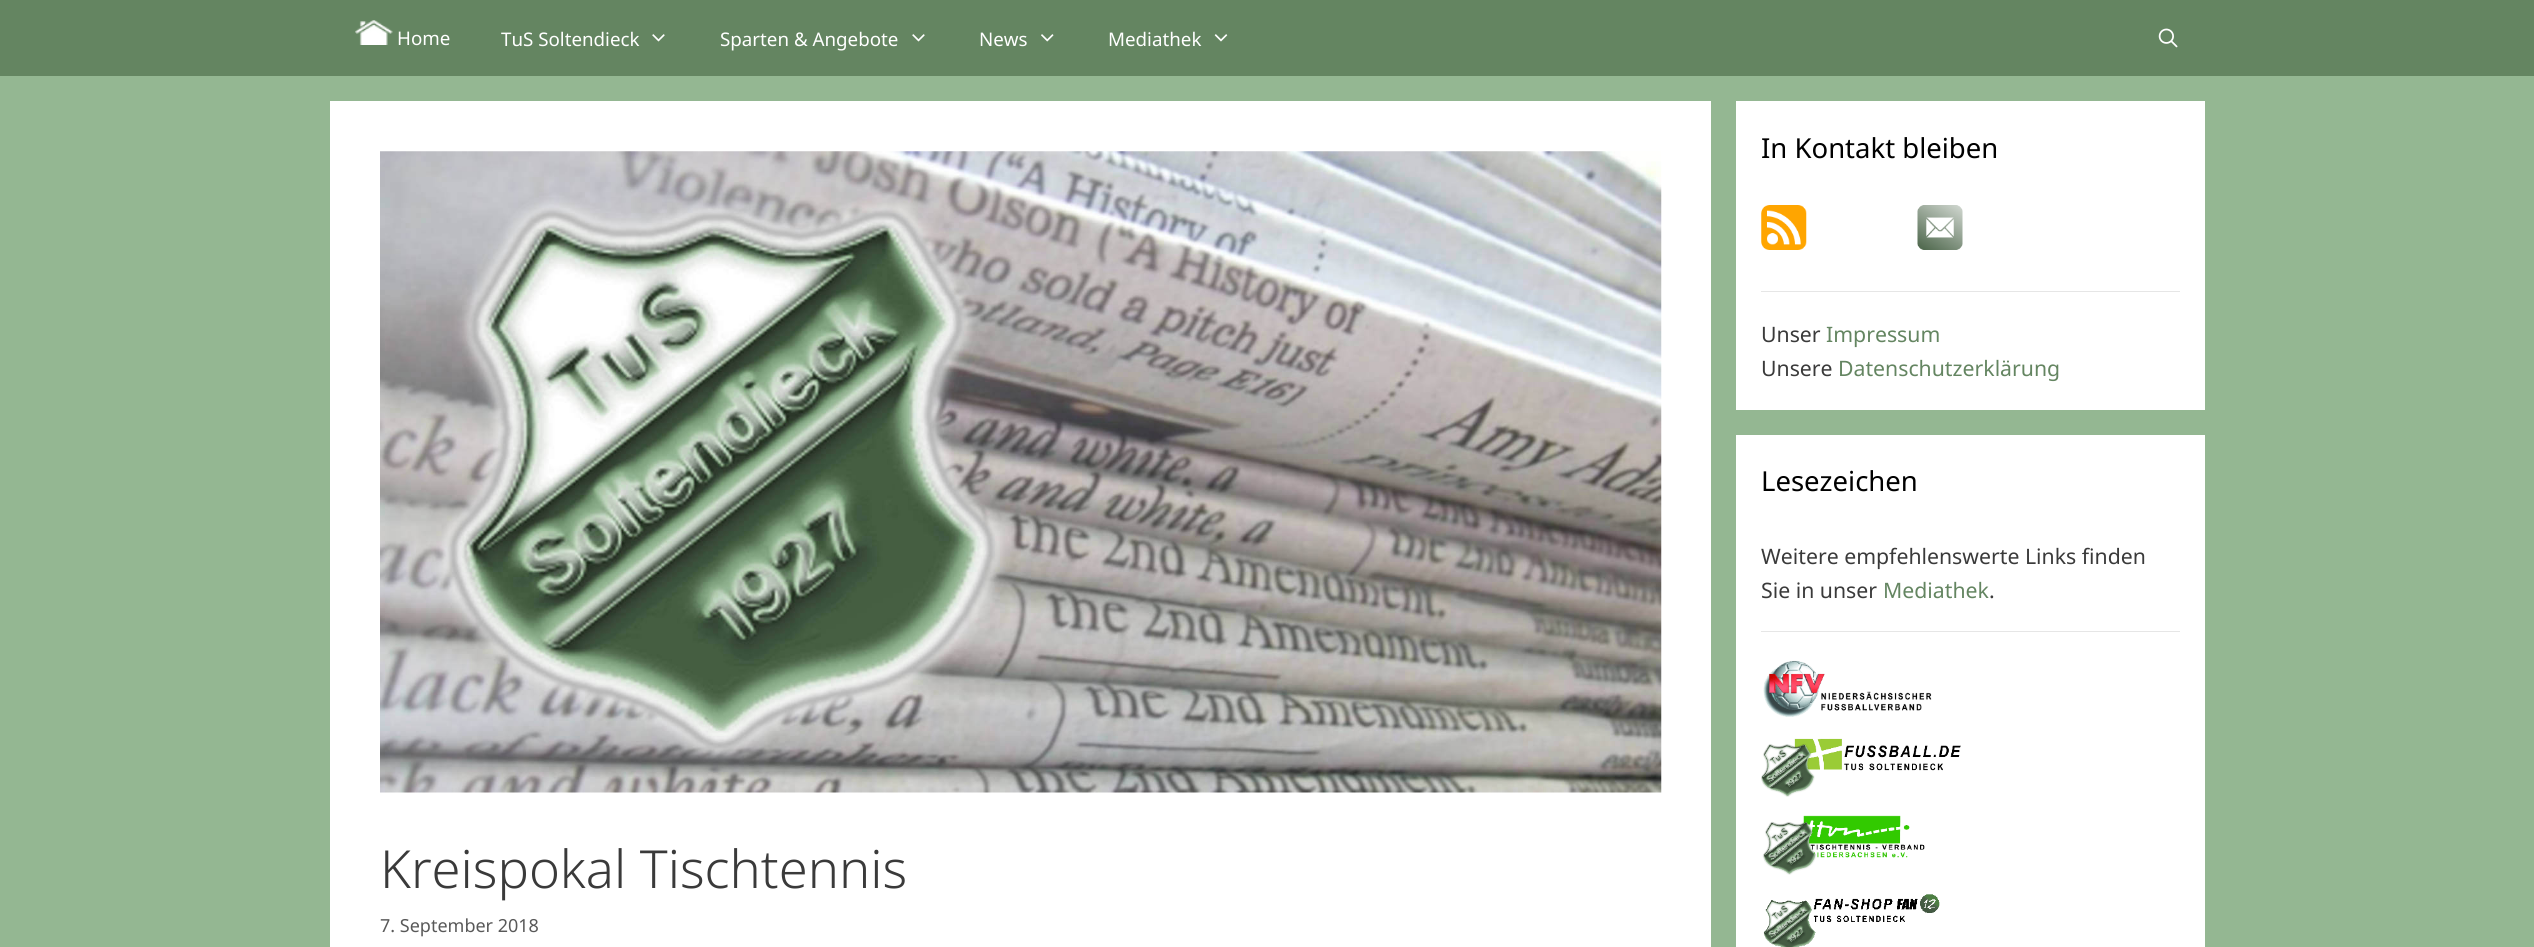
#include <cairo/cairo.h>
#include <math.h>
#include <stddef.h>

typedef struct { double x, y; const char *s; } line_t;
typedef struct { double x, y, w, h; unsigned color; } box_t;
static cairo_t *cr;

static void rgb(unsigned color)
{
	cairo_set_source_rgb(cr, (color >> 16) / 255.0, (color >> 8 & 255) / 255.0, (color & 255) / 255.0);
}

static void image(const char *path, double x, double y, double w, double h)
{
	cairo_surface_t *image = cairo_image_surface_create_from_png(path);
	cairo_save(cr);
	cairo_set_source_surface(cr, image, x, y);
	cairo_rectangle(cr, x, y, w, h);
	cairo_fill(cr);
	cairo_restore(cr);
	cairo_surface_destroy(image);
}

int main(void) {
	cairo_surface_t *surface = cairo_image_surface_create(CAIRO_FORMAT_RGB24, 2534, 947);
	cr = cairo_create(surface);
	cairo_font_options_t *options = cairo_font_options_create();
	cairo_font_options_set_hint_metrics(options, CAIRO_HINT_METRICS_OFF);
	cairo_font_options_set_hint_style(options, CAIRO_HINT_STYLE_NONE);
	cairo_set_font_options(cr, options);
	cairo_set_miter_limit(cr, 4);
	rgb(0x94b792);
	cairo_paint(cr);
	rgb(0x648561);
	cairo_rectangle(cr, 0, 0, 2534, 76);
	cairo_fill(cr);
	image("img/1.png", 355, 20, 38, 25);
	image("img/2.png", 652, 34, 13, 8);
	image("img/2.png", 912, 34, 13, 8);
	image("img/3.png", 1041, 34, 13, 8);
	image("img/4.png", 1214, 34, 14, 8);
	image("img/5.png", 2158, 28, 20, 20);
	rgb(0xffffff);
	cairo_rectangle(cr, 1736, 101, 469, 309);
	cairo_fill(cr);
	image("img/6.png", 1761, 205, 46, 45);
	image("img/7.png", 1917, 205, 46, 45);
	{
		static const box_t items[] = {
			{1761, 291, 419, 1, 0xe6e6e6},
			{1736, 435, 469, 512, 0xffffff},
			{1761, 631, 419, 1, 0xe6e6e6},
		};
		for (size_t i = 0; i < sizeof items / sizeof *items; i++) {
			rgb(items[i].color);
			cairo_rectangle(cr, items[i].x, items[i].y, items[i].w, items[i].h);
			cairo_fill(cr);
		}
	}
	image("img/8.png", 1763, 660, 169, 57);
	image("img/9.png", 1761, 738, 200, 59);
	image("img/10.png", 1762, 815, 163, 60);
	image("img/11.png", 1763, 894, 177, 53);
	rgb(0xffffff);
	cairo_rectangle(cr, 330, 101, 1381, 846);
	cairo_fill(cr);
	image("img/12.png", 380, 151, 1282, 642);
	cairo_select_font_face(cr, "Noto Sans", CAIRO_FONT_SLANT_NORMAL, CAIRO_FONT_WEIGHT_NORMAL);
	cairo_set_font_size(cr, 18.75);
	{
		static const line_t items[] = {
			{397, 45, "Home"},
			{501, 46, "TuS Soltendieck"},
			{720, 46, "Sparten & Angebote"},
			{979, 46, "News"},
			{1108, 46, "Mediathek"},
		};
		for (size_t i = 0; i < sizeof items / sizeof *items; i++) {
			cairo_move_to(cr, items[i].x, items[i].y);
			cairo_show_text(cr, items[i].s);
		}
	}
	cairo_set_font_size(cr, 27.5);
	rgb(0x000000);
	cairo_move_to(cr, 1761, 158);
	cairo_show_text(cr, "In Kontakt bleiben");
	cairo_set_font_size(cr, 21.25);
	rgb(0x3a3a3a);
	cairo_move_to(cr, 1761, 342);
	cairo_show_text(cr, "Unser");
	rgb(0x648561);
	cairo_move_to(cr, 1826, 342);
	cairo_show_text(cr, "Impressum");
	rgb(0x3a3a3a);
	cairo_move_to(cr, 1761, 376);
	cairo_show_text(cr, "Unsere");
	rgb(0x648561);
	cairo_move_to(cr, 1838, 376);
	cairo_show_text(cr, "Datenschutzerklärung");
	cairo_set_font_size(cr, 27.5);
	rgb(0x000000);
	cairo_move_to(cr, 1761, 491);
	cairo_show_text(cr, "Lesezeichen");
	cairo_set_font_size(cr, 21.25);
	rgb(0x3a3a3a);
	cairo_move_to(cr, 1761, 564);
	cairo_show_text(cr, "Weitere empfehlenswerte Links finden");
	cairo_move_to(cr, 1761, 598);
	cairo_show_text(cr, "Sie in unser");
	rgb(0x648561);
	cairo_move_to(cr, 1883, 598);
	cairo_show_text(cr, "Mediathek");
	rgb(0x3a3a3a);
	cairo_move_to(cr, 1989, 598);
	cairo_show_text(cr, ".");
	cairo_select_font_face(cr, "Noto Sans Light", CAIRO_FONT_SLANT_NORMAL, CAIRO_FONT_WEIGHT_NORMAL);
	cairo_set_font_size(cr, 52.5);
	cairo_move_to(cr, 380, 888);
	cairo_show_text(cr, "Kreispokal Tischtennis");
	cairo_select_font_face(cr, "Noto Sans", CAIRO_FONT_SLANT_NORMAL, CAIRO_FONT_WEIGHT_NORMAL);
	cairo_set_font_size(cr, 18);
	rgb(0x595959);
	cairo_move_to(cr, 380, 932);
	cairo_show_text(cr, "7. September 2018");
	cairo_surface_write_to_png(surface, "page.png");
	cairo_font_options_destroy(options);
	cairo_destroy(cr);
	cairo_surface_destroy(surface);
	return 0;
}
